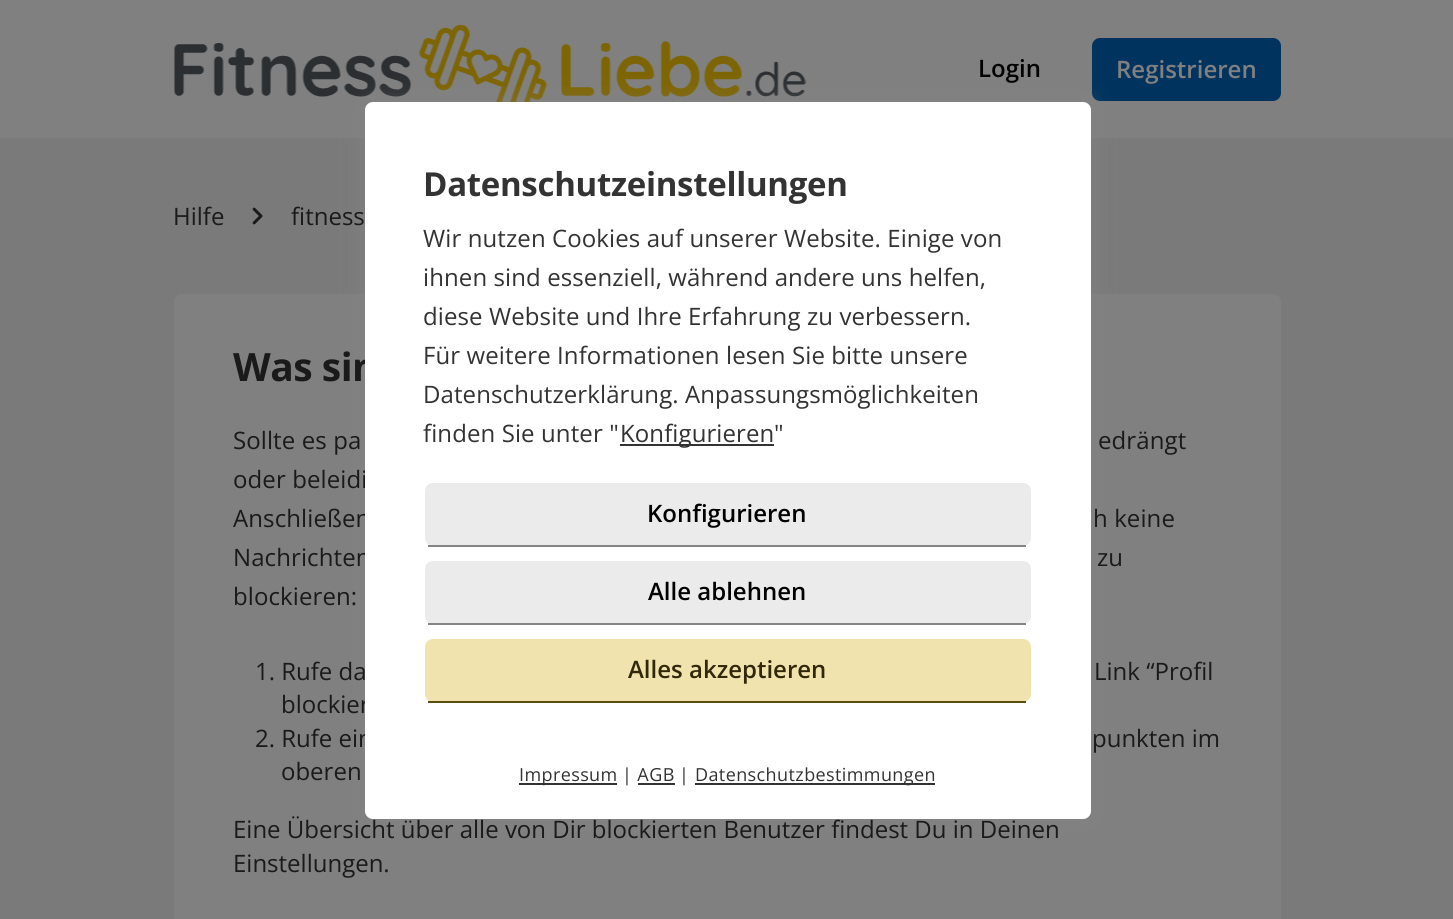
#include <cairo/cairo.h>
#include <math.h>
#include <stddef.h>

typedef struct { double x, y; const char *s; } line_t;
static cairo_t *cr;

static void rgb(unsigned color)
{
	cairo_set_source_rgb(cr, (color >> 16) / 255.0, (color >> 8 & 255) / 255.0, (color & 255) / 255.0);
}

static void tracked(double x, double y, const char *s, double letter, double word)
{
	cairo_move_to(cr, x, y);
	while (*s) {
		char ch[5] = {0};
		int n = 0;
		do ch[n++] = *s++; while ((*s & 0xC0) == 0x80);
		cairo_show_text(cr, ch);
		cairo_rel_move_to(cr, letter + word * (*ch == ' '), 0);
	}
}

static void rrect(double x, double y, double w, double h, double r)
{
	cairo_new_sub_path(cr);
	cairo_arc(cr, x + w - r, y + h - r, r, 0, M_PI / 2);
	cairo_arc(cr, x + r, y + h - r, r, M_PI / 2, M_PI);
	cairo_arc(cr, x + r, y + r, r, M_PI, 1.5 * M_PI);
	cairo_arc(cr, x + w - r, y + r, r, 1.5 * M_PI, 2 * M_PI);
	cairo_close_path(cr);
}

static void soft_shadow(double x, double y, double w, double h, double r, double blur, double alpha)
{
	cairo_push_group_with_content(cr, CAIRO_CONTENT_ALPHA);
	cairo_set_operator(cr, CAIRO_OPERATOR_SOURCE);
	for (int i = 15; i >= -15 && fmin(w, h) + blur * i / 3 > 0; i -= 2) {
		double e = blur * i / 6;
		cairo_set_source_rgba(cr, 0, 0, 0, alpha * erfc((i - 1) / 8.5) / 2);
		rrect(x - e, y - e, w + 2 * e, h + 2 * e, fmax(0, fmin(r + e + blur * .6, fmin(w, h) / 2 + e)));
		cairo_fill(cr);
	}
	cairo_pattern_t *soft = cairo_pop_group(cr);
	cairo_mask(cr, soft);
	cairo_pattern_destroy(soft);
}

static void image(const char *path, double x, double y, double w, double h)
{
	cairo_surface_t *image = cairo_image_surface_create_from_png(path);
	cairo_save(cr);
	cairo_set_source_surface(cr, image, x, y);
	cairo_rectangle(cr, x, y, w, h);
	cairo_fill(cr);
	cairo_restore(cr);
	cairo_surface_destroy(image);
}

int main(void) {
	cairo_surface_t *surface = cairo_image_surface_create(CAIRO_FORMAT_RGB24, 1453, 919);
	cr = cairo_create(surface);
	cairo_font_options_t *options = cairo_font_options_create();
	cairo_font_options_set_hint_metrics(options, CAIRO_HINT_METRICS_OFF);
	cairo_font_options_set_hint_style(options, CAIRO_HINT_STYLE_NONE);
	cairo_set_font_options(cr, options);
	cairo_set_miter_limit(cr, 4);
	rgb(0x7a7a7a);
	cairo_paint(cr);
	rgb(0x808080);
	cairo_rectangle(cr, 0, 0, 1453, 138);
	cairo_fill(cr);
	image("img/1.png", 174, 24, 632, 78);
	rgb(0x00345e);
	rrect(1092, 38, 189, 63, 8);
	cairo_fill(cr);
	rgb(0x808080);
	rrect(174, 294, 1107, 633, 8);
	cairo_fill(cr);
	rgb(0x888888);
	soft_shadow(365, 102, 726, 717, 8, 11, 0.5);
	image("img/2.png", 252, 207, 11, 18);
	cairo_select_font_face(cr, "Open Sans SemiBold", CAIRO_FONT_SLANT_NORMAL, CAIRO_FONT_WEIGHT_NORMAL);
	cairo_set_font_size(cr, 24);
	rgb(0x000000);
	cairo_move_to(cr, 978, 77);
	cairo_show_text(cr, "Login");
	rgb(0x808080);
	cairo_move_to(cr, 1116, 78);
	cairo_show_text(cr, "Registrieren");
	cairo_select_font_face(cr, "Open Sans", CAIRO_FONT_SLANT_NORMAL, CAIRO_FONT_WEIGHT_NORMAL);
	rgb(0x1a1a1a);
	cairo_move_to(cr, 173, 225);
	cairo_show_text(cr, "Hilfe");
	cairo_move_to(cr, 291, 225);
	cairo_show_text(cr, "fitness");
	cairo_select_font_face(cr, "Open Sans", CAIRO_FONT_SLANT_NORMAL, CAIRO_FONT_WEIGHT_BOLD);
	cairo_set_font_size(cr, 39);
	tracked(233, 381, "Was sin", -0.5, 0);
	cairo_select_font_face(cr, "Open Sans", CAIRO_FONT_SLANT_NORMAL, CAIRO_FONT_WEIGHT_NORMAL);
	cairo_set_font_size(cr, 24);
	{
		static const line_t items[] = {
			{233, 449, "Sollte es pa"},
			{1098, 449, "edrängt"},
			{233, 488, "oder beleidi"},
			{233, 527, "Anschließen"},
			{1093, 527, "h keine"},
			{233, 566, "Nachrichten"},
			{1097, 566, "zu"},
			{233, 605, "blockieren:"},
		};
		for (size_t i = 0; i < sizeof items / sizeof *items; i++) {
			tracked(items[i].x, items[i].y, items[i].s, 0.1, 0);
		}
	}
	{
		static const line_t items[] = {
			{255, 680, "1. Rufe da"},
			{1094, 680, "Link “Profil"},
			{281, 713, "blockier"},
			{255, 747, "2. Rufe ein"},
			{1092, 747, "punkten im"},
			{281, 780, "oberen"},
			{233, 838, "Eine Übersicht über alle von Dir blockierten Benutzer findest Du in Deinen"},
		};
		for (size_t i = 0; i < sizeof items / sizeof *items; i++) {
			cairo_move_to(cr, items[i].x, items[i].y);
			cairo_show_text(cr, items[i].s);
		}
	}
	rgb(0xffffff);
	rrect(365, 102, 726, 717, 8);
	cairo_fill(cr);
	rgb(0x333333);
	cairo_rectangle(cr, 695, 783, 240, 2);
	cairo_fill(cr);
	cairo_set_font_size(cr, 18);
	tracked(695, 781, "Datenschutzbestimmungen", 0.4, 0);
	cairo_rectangle(cr, 638, 783, 37, 2);
	cairo_fill(cr);
	cairo_rectangle(cr, 519, 783, 98, 2);
	cairo_fill(cr);
	tracked(519, 781, "Impressum", 0.4, 0);
	rgb(0xf0e3ad);
	rrect(425, 639, 606, 63, 8);
	cairo_fill(cr);
	cairo_select_font_face(cr, "Open Sans SemiBold", CAIRO_FONT_SLANT_NORMAL, CAIRO_FONT_WEIGHT_NORMAL);
	cairo_set_font_size(cr, 24);
	rgb(0x302808);
	cairo_move_to(cr, 628, 678);
	cairo_show_text(cr, "Alles akzeptieren");
	rgb(0x5b4c10);
	cairo_rectangle(cr, 428, 701, 598, 2);
	cairo_fill(cr);
	rgb(0xebebeb);
	rrect(425, 561, 606, 63, 8);
	cairo_fill(cr);
	rgb(0x000000);
	cairo_move_to(cr, 648, 600);
	cairo_show_text(cr, "Alle ablehnen");
	rgb(0x858585);
	cairo_rectangle(cr, 428, 623, 598, 2);
	cairo_fill(cr);
	rgb(0xebebeb);
	rrect(425, 483, 606, 63, 8);
	cairo_fill(cr);
	rgb(0x000000);
	cairo_move_to(cr, 647, 522);
	cairo_show_text(cr, "Konfigurieren");
	rgb(0x858585);
	cairo_rectangle(cr, 428, 545, 598, 2);
	cairo_fill(cr);
	rgb(0x333333);
	cairo_rectangle(cr, 620, 444, 154, 2);
	cairo_fill(cr);
	cairo_select_font_face(cr, "Open Sans", CAIRO_FONT_SLANT_NORMAL, CAIRO_FONT_WEIGHT_NORMAL);
	tracked(620, 442, "Konfigurieren", 0.1, 0);
	cairo_set_font_size(cr, 18);
	tracked(679, 781, "|", 0.4, 0);
	tracked(622, 781, "| AGB", 0.4, 0);
	cairo_set_font_size(cr, 24);
	{
		static const line_t items[] = {
			{774, 442, "\""},
			{423, 442, "finden Sie unter \""},
			{423, 403, "Datenschutzerklärung. Anpassungsmöglichkeiten"},
			{423, 364, "Für weitere Informationen lesen Sie bitte unsere"},
			{423, 325, "diese Website und Ihre Erfahrung zu verbessern."},
			{423, 286, "ihnen sind essenziell, während andere uns helfen,"},
			{423, 247, "Wir nutzen Cookies auf unserer Website. Einige von"},
		};
		for (size_t i = 0; i < sizeof items / sizeof *items; i++) {
			tracked(items[i].x, items[i].y, items[i].s, 0.1, 0);
		}
	}
	cairo_select_font_face(cr, "Open Sans", CAIRO_FONT_SLANT_NORMAL, CAIRO_FONT_WEIGHT_BOLD);
	cairo_set_font_size(cr, 33);
	tracked(423, 196, "Datenschutzeinstellungen", -0.3, 0);
	cairo_select_font_face(cr, "Open Sans", CAIRO_FONT_SLANT_NORMAL, CAIRO_FONT_WEIGHT_NORMAL);
	cairo_set_font_size(cr, 24);
	rgb(0x1a1a1a);
	cairo_move_to(cr, 233, 872);
	cairo_show_text(cr, "Einstellungen.");
	cairo_surface_write_to_png(surface, "page.png");
	cairo_font_options_destroy(options);
	cairo_destroy(cr);
	cairo_surface_destroy(surface);
	return 0;
}
